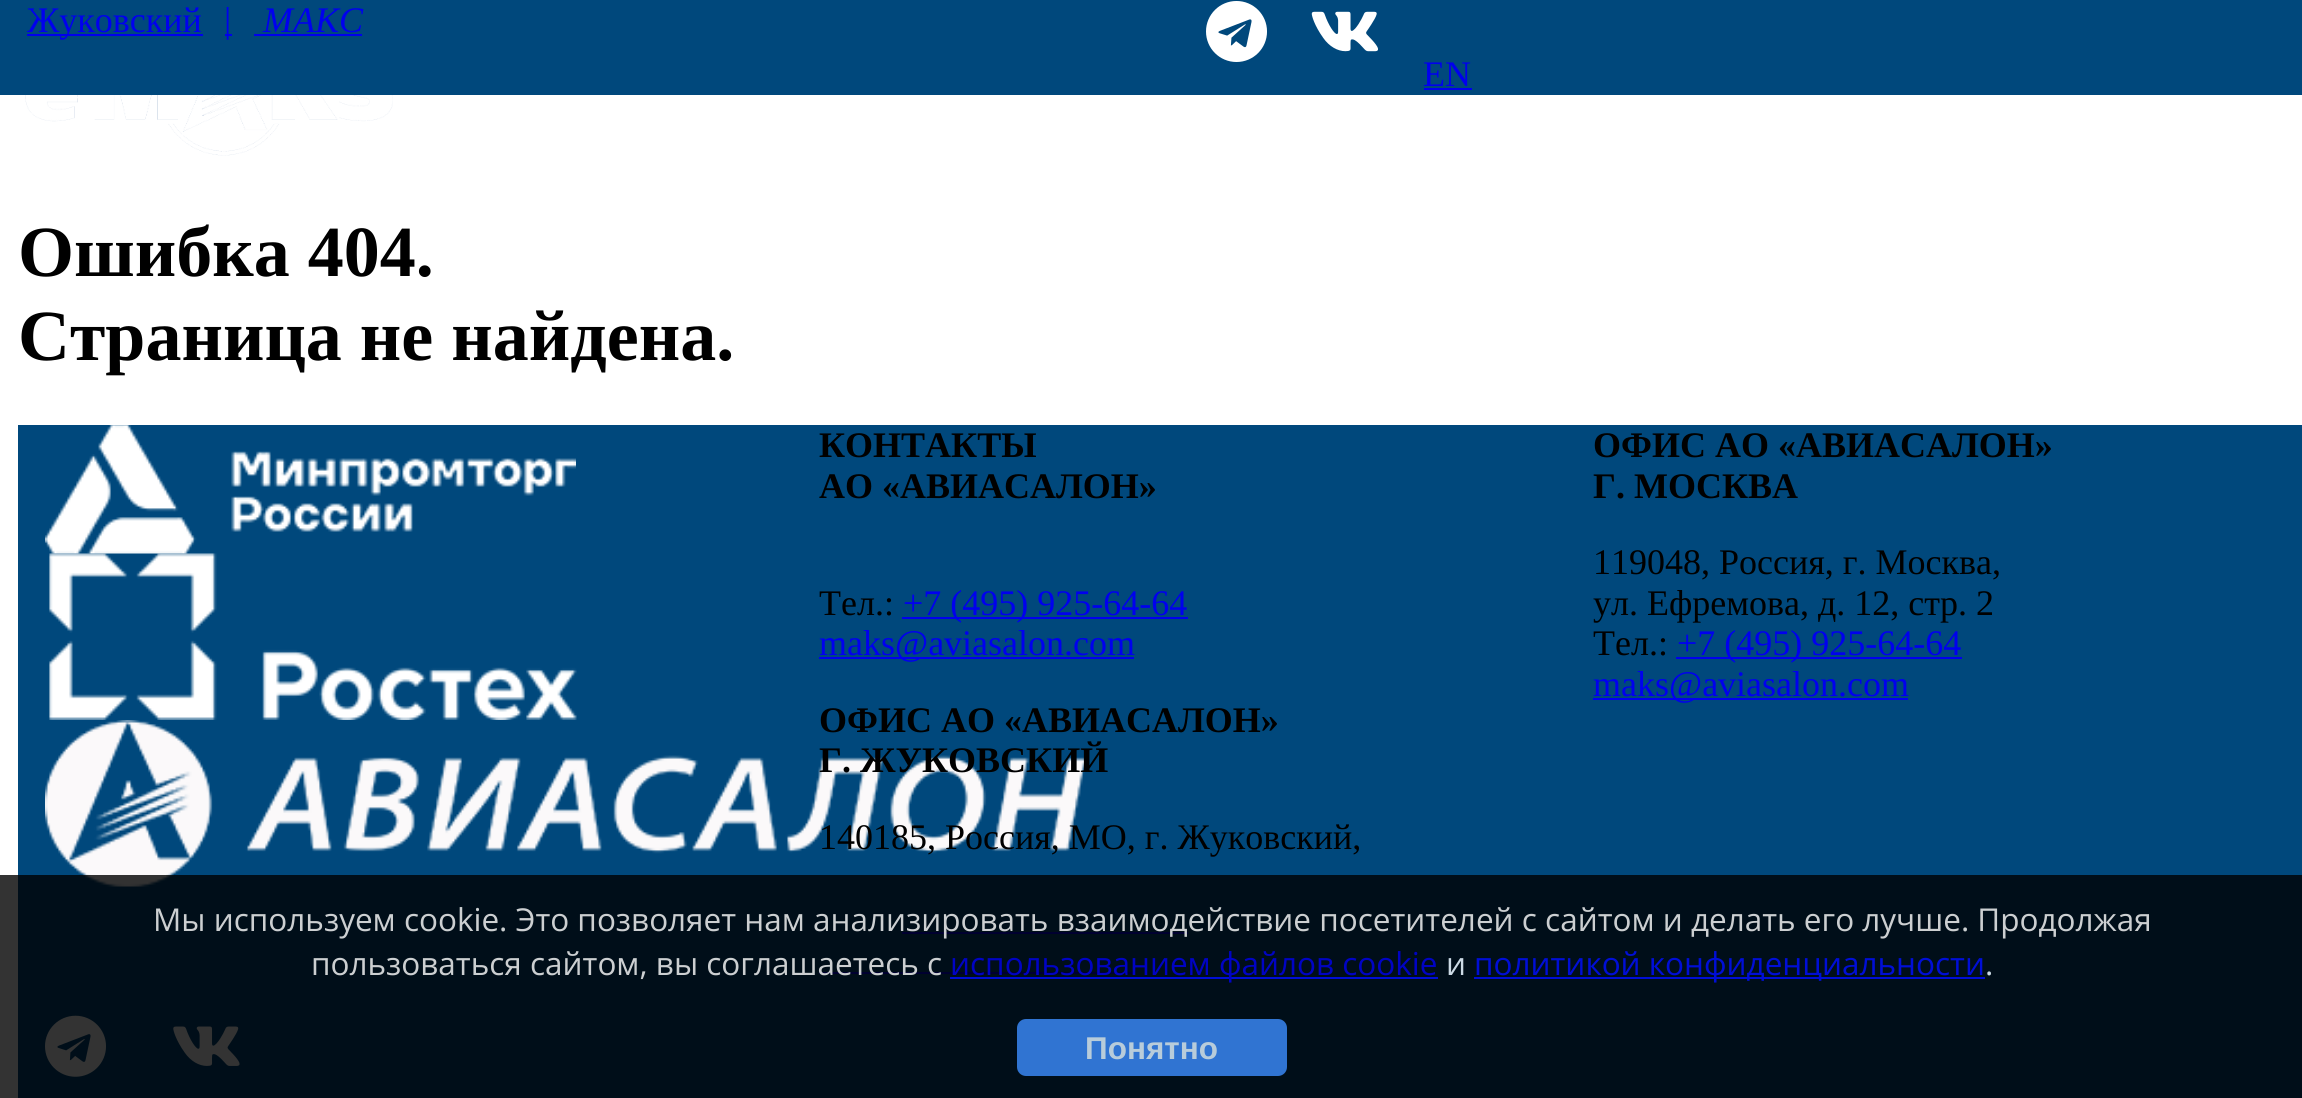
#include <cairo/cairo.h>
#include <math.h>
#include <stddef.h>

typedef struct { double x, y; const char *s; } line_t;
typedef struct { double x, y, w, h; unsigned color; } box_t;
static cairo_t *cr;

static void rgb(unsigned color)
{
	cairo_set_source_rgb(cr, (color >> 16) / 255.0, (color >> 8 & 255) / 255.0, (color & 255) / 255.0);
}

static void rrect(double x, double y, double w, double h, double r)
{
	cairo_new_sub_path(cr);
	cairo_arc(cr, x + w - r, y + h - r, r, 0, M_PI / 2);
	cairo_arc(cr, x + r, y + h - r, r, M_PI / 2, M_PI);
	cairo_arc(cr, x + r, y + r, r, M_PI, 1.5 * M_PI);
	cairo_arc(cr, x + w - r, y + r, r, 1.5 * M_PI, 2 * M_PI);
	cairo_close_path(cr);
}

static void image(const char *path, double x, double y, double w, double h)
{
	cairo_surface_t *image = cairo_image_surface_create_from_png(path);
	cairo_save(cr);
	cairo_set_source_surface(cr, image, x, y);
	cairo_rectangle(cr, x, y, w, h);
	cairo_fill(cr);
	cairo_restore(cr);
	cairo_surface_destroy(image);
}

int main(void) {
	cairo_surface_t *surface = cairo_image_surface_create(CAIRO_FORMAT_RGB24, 2302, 1098);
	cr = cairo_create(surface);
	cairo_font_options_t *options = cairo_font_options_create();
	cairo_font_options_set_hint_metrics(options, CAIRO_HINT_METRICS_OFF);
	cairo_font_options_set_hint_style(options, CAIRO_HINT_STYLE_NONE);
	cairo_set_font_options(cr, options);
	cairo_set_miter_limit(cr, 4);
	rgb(0xffffff);
	cairo_paint(cr);
	{
		static const box_t items[] = {
			{0, 0, 2302, 95, 0x00487c},
			{27, 34, 176, 2, 0x0000ee},
			{225, 34, 7, 2, 0x0000ee},
			{254, 34, 108, 2, 0x0000ee},
		};
		for (size_t i = 0; i < sizeof items / sizeof *items; i++) {
			rgb(items[i].color);
			cairo_rectangle(cr, items[i].x, items[i].y, items[i].w, items[i].h);
			cairo_fill(cr);
		}
	}
	image("img/1.png", 1206, 1, 61, 61);
	image("img/2.png", 1311, 11, 67, 41);
	cairo_rectangle(cr, 1424, 88, 48, 2);
	cairo_fill(cr);
	image("img/3.png", 25, 95, 368, 61);
	rgb(0x00487c);
	cairo_rectangle(cr, 18, 425, 2284, 673);
	cairo_fill(cr);
	image("img/4.png", 45, 425, 531, 129);
	image("img/5.png", 49, 553, 528, 167);
	image("img/6.png", 45, 720, 1040, 167);
	{
		static const box_t items[] = {
			{902, 617, 286, 2, 0x0000ee},
			{819, 657, 315, 2, 0x0000ee},
			{902, 932, 286, 2, 0x0000ee},
			{819, 972, 315, 2, 0x0000ee},
			{1676, 657, 286, 2, 0x0000ee},
			{1593, 698, 315, 2, 0x0000ee},
		};
		for (size_t i = 0; i < sizeof items / sizeof *items; i++) {
			rgb(items[i].color);
			cairo_rectangle(cr, items[i].x, items[i].y, items[i].w, items[i].h);
			cairo_fill(cr);
		}
	}
	image("img/7.png", 45, 1015, 61, 62);
	image("img/8.png", 173, 1026, 67, 40);
	cairo_set_source_rgba(cr, 0, 0, 0, 0.8);
	cairo_rectangle(cr, 0, 875, 2302, 223);
	cairo_fill(cr);
	rgb(0x000ed7);
	cairo_rectangle(cr, 950, 977, 488, 2);
	cairo_fill(cr);
	cairo_rectangle(cr, 1474, 977, 511, 2);
	cairo_fill(cr);
	rgb(0x3074d2);
	rrect(1017, 1019, 270, 57, 9);
	cairo_fill(cr);
	cairo_select_font_face(cr, "Liberation Serif", CAIRO_FONT_SLANT_NORMAL, CAIRO_FONT_WEIGHT_NORMAL);
	cairo_set_font_size(cr, 36);
	rgb(0x0000ee);
	cairo_move_to(cr, 27, 32);
	cairo_show_text(cr, "Жуковский");
	cairo_move_to(cr, 224, 32);
	cairo_show_text(cr, "|");
	cairo_select_font_face(cr, "Liberation Serif", CAIRO_FONT_SLANT_ITALIC, CAIRO_FONT_WEIGHT_NORMAL);
	cairo_move_to(cr, 263, 32);
	cairo_show_text(cr, "МАКС");
	cairo_select_font_face(cr, "Liberation Serif", CAIRO_FONT_SLANT_NORMAL, CAIRO_FONT_WEIGHT_NORMAL);
	cairo_move_to(cr, 1423, 86);
	cairo_show_text(cr, "EN");
	cairo_select_font_face(cr, "Liberation Serif", CAIRO_FONT_SLANT_NORMAL, CAIRO_FONT_WEIGHT_BOLD);
	cairo_set_font_size(cr, 72);
	rgb(0x000000);
	cairo_move_to(cr, 18, 276);
	cairo_show_text(cr, "Ошибка 404.");
	cairo_move_to(cr, 18, 360);
	cairo_show_text(cr, "Страница не найдена.");
	cairo_set_font_size(cr, 36);
	cairo_move_to(cr, 819, 457);
	cairo_show_text(cr, "КОНТАКТЫ");
	cairo_move_to(cr, 819, 498);
	cairo_show_text(cr, "АО «АВИАСАЛОН»");
	cairo_select_font_face(cr, "Liberation Serif", CAIRO_FONT_SLANT_NORMAL, CAIRO_FONT_WEIGHT_NORMAL);
	cairo_move_to(cr, 819, 615);
	cairo_show_text(cr, "Тел.:");
	rgb(0x0000ee);
	cairo_move_to(cr, 903, 615);
	cairo_show_text(cr, "+7 (495) 925-64-64");
	cairo_move_to(cr, 819, 655);
	cairo_show_text(cr, "maks@aviasalon.com");
	cairo_select_font_face(cr, "Liberation Serif", CAIRO_FONT_SLANT_NORMAL, CAIRO_FONT_WEIGHT_BOLD);
	rgb(0x000000);
	cairo_move_to(cr, 819, 732);
	cairo_show_text(cr, "ОФИС АО «АВИАСАЛОН»");
	cairo_move_to(cr, 819, 772);
	cairo_show_text(cr, "Г. ЖУКОВСКИЙ");
	cairo_select_font_face(cr, "Liberation Serif", CAIRO_FONT_SLANT_NORMAL, CAIRO_FONT_WEIGHT_NORMAL);
	cairo_move_to(cr, 819, 849);
	cairo_show_text(cr, "140185, Россия, МО, г. Жуковский,");
	cairo_select_font_face(cr, "Liberation Serif", CAIRO_FONT_SLANT_NORMAL, CAIRO_FONT_WEIGHT_BOLD);
	cairo_move_to(cr, 1593, 457);
	cairo_show_text(cr, "ОФИС АО «АВИАСАЛОН»");
	cairo_move_to(cr, 1593, 498);
	cairo_show_text(cr, "Г. МОСКВА");
	cairo_select_font_face(cr, "Liberation Serif", CAIRO_FONT_SLANT_NORMAL, CAIRO_FONT_WEIGHT_NORMAL);
	{
		static const line_t items[] = {
			{1593, 574, "119048, Россия, г. Москва,"},
			{1593, 615, "ул. Ефремова, д. 12, стр. 2"},
			{1593, 655, "Тел.:"},
		};
		for (size_t i = 0; i < sizeof items / sizeof *items; i++) {
			cairo_move_to(cr, items[i].x, items[i].y);
			cairo_show_text(cr, items[i].s);
		}
	}
	rgb(0x0000ee);
	cairo_move_to(cr, 1677, 655);
	cairo_show_text(cr, "+7 (495) 925-64-64");
	cairo_move_to(cr, 1593, 696);
	cairo_show_text(cr, "maks@aviasalon.com");
	cairo_select_font_face(cr, "Open Sans", CAIRO_FONT_SLANT_NORMAL, CAIRO_FONT_WEIGHT_NORMAL);
	cairo_set_font_size(cr, 31.5);
	rgb(0xcccfd1);
	cairo_move_to(cr, 153, 931);
	cairo_show_text(cr, "Мы используем cookie. Это позволяет нам анализировать взаимодействие посетителей с сайтом и делать его лучше. Продолжая");
	cairo_move_to(cr, 311, 975);
	cairo_show_text(cr, "пользоваться сайтом, вы соглашаетесь с");
	rgb(0x0003c4);
	cairo_move_to(cr, 950, 975);
	cairo_show_text(cr, "использованием файлов cookie");
	rgb(0xccdae5);
	cairo_move_to(cr, 1446, 975);
	cairo_show_text(cr, "и");
	rgb(0x000ed7);
	cairo_move_to(cr, 1474, 975);
	cairo_show_text(cr, "политикой конфиденциальности");
	rgb(0xccdae5);
	cairo_move_to(cr, 1985, 975);
	cairo_show_text(cr, ".");
	cairo_select_font_face(cr, "Liberation Sans", CAIRO_FONT_SLANT_NORMAL, CAIRO_FONT_WEIGHT_BOLD);
	rgb(0xb8ccda);
	cairo_move_to(cr, 1085, 1059);
	cairo_show_text(cr, "Понятно");
	cairo_surface_write_to_png(surface, "page.png");
	cairo_font_options_destroy(options);
	cairo_destroy(cr);
	cairo_surface_destroy(surface);
	return 0;
}
